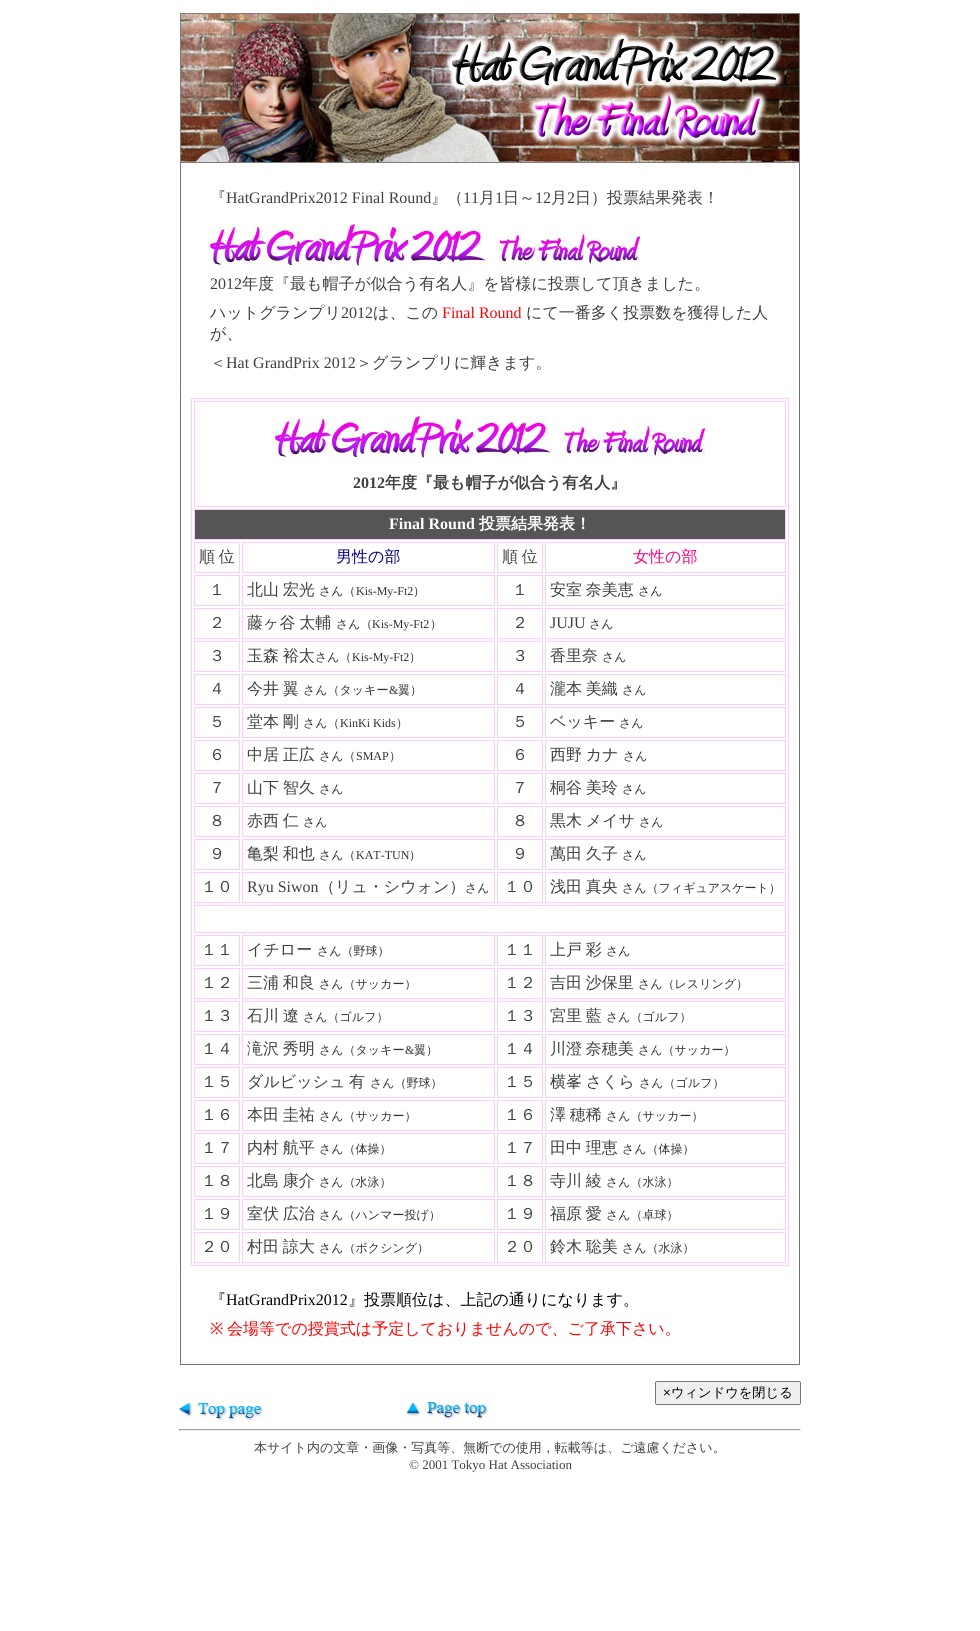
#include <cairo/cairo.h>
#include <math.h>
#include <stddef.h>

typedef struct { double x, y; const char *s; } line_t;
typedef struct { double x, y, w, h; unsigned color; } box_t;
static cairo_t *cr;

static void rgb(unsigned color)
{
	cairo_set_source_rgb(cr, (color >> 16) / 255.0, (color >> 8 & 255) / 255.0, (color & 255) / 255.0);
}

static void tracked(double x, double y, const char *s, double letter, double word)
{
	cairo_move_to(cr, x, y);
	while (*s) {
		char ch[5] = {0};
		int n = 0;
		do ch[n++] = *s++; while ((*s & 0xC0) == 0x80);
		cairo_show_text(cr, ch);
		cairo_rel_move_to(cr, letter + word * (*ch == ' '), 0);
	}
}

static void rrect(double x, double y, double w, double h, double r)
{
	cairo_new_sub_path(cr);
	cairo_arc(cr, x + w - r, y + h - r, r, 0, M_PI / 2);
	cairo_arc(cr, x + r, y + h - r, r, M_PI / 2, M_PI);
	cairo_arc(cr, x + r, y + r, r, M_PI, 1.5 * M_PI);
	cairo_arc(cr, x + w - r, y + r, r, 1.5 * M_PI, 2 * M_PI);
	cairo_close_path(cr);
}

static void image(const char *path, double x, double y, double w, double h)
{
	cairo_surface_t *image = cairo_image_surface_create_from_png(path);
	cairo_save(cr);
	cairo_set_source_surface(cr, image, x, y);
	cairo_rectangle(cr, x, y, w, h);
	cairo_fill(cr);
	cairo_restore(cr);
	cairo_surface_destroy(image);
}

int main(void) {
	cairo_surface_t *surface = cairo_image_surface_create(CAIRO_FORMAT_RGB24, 980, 1631);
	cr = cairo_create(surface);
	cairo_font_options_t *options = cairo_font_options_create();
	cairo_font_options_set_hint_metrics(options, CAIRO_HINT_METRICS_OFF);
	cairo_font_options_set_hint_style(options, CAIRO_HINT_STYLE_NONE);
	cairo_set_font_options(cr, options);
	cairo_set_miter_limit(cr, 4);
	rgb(0xffffff);
	cairo_paint(cr);
	image("img/1.png", 180, 13, 620, 150);
	rgb(0x737373);
	cairo_rectangle(cr, 180, 163, 1, 1201);
	cairo_fill(cr);
	cairo_rectangle(cr, 799, 163, 1, 1201);
	cairo_fill(cr);
	image("img/2.png", 210, 224, 430, 42);
	cairo_rectangle(cr, 191.5, 398.5, 597, 867);
	rgb(0xffccff);
	cairo_set_line_width(cr, 1);
	cairo_stroke(cr);
	cairo_rectangle(cr, 194.5, 401.5, 591, 105);
	cairo_stroke(cr);
	image("img/2.png", 275, 416, 430, 42);
	rgb(0x555555);
	cairo_rectangle(cr, 194.5, 509.5, 591, 30);
	cairo_fill_preserve(cr);
	rgb(0xffccff);
	cairo_stroke(cr);
	cairo_rectangle(cr, 194.5, 542.5, 45, 30);
	cairo_stroke(cr);
	cairo_rectangle(cr, 242.5, 542.5, 252, 30);
	cairo_stroke(cr);
	cairo_rectangle(cr, 497.5, 542.5, 45, 30);
	cairo_stroke(cr);
	cairo_rectangle(cr, 545.5, 542.5, 240, 30);
	cairo_stroke(cr);
	cairo_rectangle(cr, 194.5, 575.5, 45, 30);
	cairo_stroke(cr);
	cairo_rectangle(cr, 242.5, 575.5, 252, 30);
	cairo_stroke(cr);
	cairo_rectangle(cr, 497.5, 575.5, 45, 30);
	cairo_stroke(cr);
	cairo_rectangle(cr, 545.5, 575.5, 240, 30);
	cairo_stroke(cr);
	cairo_rectangle(cr, 194.5, 608.5, 45, 30);
	cairo_stroke(cr);
	cairo_rectangle(cr, 242.5, 608.5, 252, 30);
	cairo_stroke(cr);
	cairo_rectangle(cr, 497.5, 608.5, 45, 30);
	cairo_stroke(cr);
	cairo_rectangle(cr, 545.5, 608.5, 240, 30);
	cairo_stroke(cr);
	cairo_rectangle(cr, 194.5, 641.5, 45, 30);
	cairo_stroke(cr);
	cairo_rectangle(cr, 242.5, 641.5, 252, 30);
	cairo_stroke(cr);
	cairo_rectangle(cr, 497.5, 641.5, 45, 30);
	cairo_stroke(cr);
	cairo_rectangle(cr, 545.5, 641.5, 240, 30);
	cairo_stroke(cr);
	cairo_rectangle(cr, 194.5, 674.5, 45, 30);
	cairo_stroke(cr);
	cairo_rectangle(cr, 242.5, 674.5, 252, 30);
	cairo_stroke(cr);
	cairo_rectangle(cr, 497.5, 674.5, 45, 30);
	cairo_stroke(cr);
	cairo_rectangle(cr, 545.5, 674.5, 240, 30);
	cairo_stroke(cr);
	cairo_rectangle(cr, 194.5, 707.5, 45, 30);
	cairo_stroke(cr);
	cairo_rectangle(cr, 242.5, 707.5, 252, 30);
	cairo_stroke(cr);
	cairo_rectangle(cr, 497.5, 707.5, 45, 30);
	cairo_stroke(cr);
	cairo_rectangle(cr, 545.5, 707.5, 240, 30);
	cairo_stroke(cr);
	cairo_rectangle(cr, 194.5, 740.5, 45, 30);
	cairo_stroke(cr);
	cairo_rectangle(cr, 242.5, 740.5, 252, 30);
	cairo_stroke(cr);
	cairo_rectangle(cr, 497.5, 740.5, 45, 30);
	cairo_stroke(cr);
	cairo_rectangle(cr, 545.5, 740.5, 240, 30);
	cairo_stroke(cr);
	cairo_rectangle(cr, 194.5, 773.5, 45, 30);
	cairo_stroke(cr);
	cairo_rectangle(cr, 242.5, 773.5, 252, 30);
	cairo_stroke(cr);
	cairo_rectangle(cr, 497.5, 773.5, 45, 30);
	cairo_stroke(cr);
	cairo_rectangle(cr, 545.5, 773.5, 240, 30);
	cairo_stroke(cr);
	cairo_rectangle(cr, 194.5, 806.5, 45, 30);
	cairo_stroke(cr);
	cairo_rectangle(cr, 242.5, 806.5, 252, 30);
	cairo_stroke(cr);
	cairo_rectangle(cr, 497.5, 806.5, 45, 30);
	cairo_stroke(cr);
	cairo_rectangle(cr, 545.5, 806.5, 240, 30);
	cairo_stroke(cr);
	cairo_rectangle(cr, 194.5, 839.5, 45, 30);
	cairo_stroke(cr);
	cairo_rectangle(cr, 242.5, 839.5, 252, 30);
	cairo_stroke(cr);
	cairo_rectangle(cr, 497.5, 839.5, 45, 30);
	cairo_stroke(cr);
	cairo_rectangle(cr, 545.5, 839.5, 240, 30);
	cairo_stroke(cr);
	cairo_rectangle(cr, 194.5, 872.5, 45, 30);
	cairo_stroke(cr);
	cairo_rectangle(cr, 242.5, 872.5, 252, 30);
	cairo_stroke(cr);
	cairo_rectangle(cr, 497.5, 872.5, 45, 30);
	cairo_stroke(cr);
	cairo_rectangle(cr, 545.5, 872.5, 240, 30);
	cairo_stroke(cr);
	cairo_rectangle(cr, 194.5, 905.5, 591, 27);
	cairo_stroke(cr);
	cairo_rectangle(cr, 194.5, 935.5, 45, 30);
	cairo_stroke(cr);
	cairo_rectangle(cr, 242.5, 935.5, 252, 30);
	cairo_stroke(cr);
	cairo_rectangle(cr, 497.5, 935.5, 45, 30);
	cairo_stroke(cr);
	cairo_rectangle(cr, 545.5, 935.5, 240, 30);
	cairo_stroke(cr);
	cairo_rectangle(cr, 194.5, 968.5, 45, 30);
	cairo_stroke(cr);
	cairo_rectangle(cr, 242.5, 968.5, 252, 30);
	cairo_stroke(cr);
	cairo_rectangle(cr, 497.5, 968.5, 45, 30);
	cairo_stroke(cr);
	cairo_rectangle(cr, 545.5, 968.5, 240, 30);
	cairo_stroke(cr);
	cairo_rectangle(cr, 194.5, 1001.5, 45, 30);
	cairo_stroke(cr);
	cairo_rectangle(cr, 242.5, 1001.5, 252, 30);
	cairo_stroke(cr);
	cairo_rectangle(cr, 497.5, 1001.5, 45, 30);
	cairo_stroke(cr);
	cairo_rectangle(cr, 545.5, 1001.5, 240, 30);
	cairo_stroke(cr);
	cairo_rectangle(cr, 194.5, 1034.5, 45, 30);
	cairo_stroke(cr);
	cairo_rectangle(cr, 242.5, 1034.5, 252, 30);
	cairo_stroke(cr);
	cairo_rectangle(cr, 497.5, 1034.5, 45, 30);
	cairo_stroke(cr);
	cairo_rectangle(cr, 545.5, 1034.5, 240, 30);
	cairo_stroke(cr);
	cairo_rectangle(cr, 194.5, 1067.5, 45, 30);
	cairo_stroke(cr);
	cairo_rectangle(cr, 242.5, 1067.5, 252, 30);
	cairo_stroke(cr);
	cairo_rectangle(cr, 497.5, 1067.5, 45, 30);
	cairo_stroke(cr);
	cairo_rectangle(cr, 545.5, 1067.5, 240, 30);
	cairo_stroke(cr);
	cairo_rectangle(cr, 194.5, 1100.5, 45, 30);
	cairo_stroke(cr);
	cairo_rectangle(cr, 242.5, 1100.5, 252, 30);
	cairo_stroke(cr);
	cairo_rectangle(cr, 497.5, 1100.5, 45, 30);
	cairo_stroke(cr);
	cairo_rectangle(cr, 545.5, 1100.5, 240, 30);
	cairo_stroke(cr);
	cairo_rectangle(cr, 194.5, 1133.5, 45, 30);
	cairo_stroke(cr);
	cairo_rectangle(cr, 242.5, 1133.5, 252, 30);
	cairo_stroke(cr);
	cairo_rectangle(cr, 497.5, 1133.5, 45, 30);
	cairo_stroke(cr);
	cairo_rectangle(cr, 545.5, 1133.5, 240, 30);
	cairo_stroke(cr);
	cairo_rectangle(cr, 194.5, 1166.5, 45, 30);
	cairo_stroke(cr);
	cairo_rectangle(cr, 242.5, 1166.5, 252, 30);
	cairo_stroke(cr);
	cairo_rectangle(cr, 497.5, 1166.5, 45, 30);
	cairo_stroke(cr);
	cairo_rectangle(cr, 545.5, 1166.5, 240, 30);
	cairo_stroke(cr);
	cairo_rectangle(cr, 194.5, 1199.5, 45, 30);
	cairo_stroke(cr);
	cairo_rectangle(cr, 242.5, 1199.5, 252, 30);
	cairo_stroke(cr);
	cairo_rectangle(cr, 497.5, 1199.5, 45, 30);
	cairo_stroke(cr);
	cairo_rectangle(cr, 545.5, 1199.5, 240, 30);
	cairo_stroke(cr);
	cairo_rectangle(cr, 194.5, 1232.5, 45, 30);
	cairo_stroke(cr);
	cairo_rectangle(cr, 242.5, 1232.5, 252, 30);
	cairo_stroke(cr);
	cairo_rectangle(cr, 497.5, 1232.5, 45, 30);
	cairo_stroke(cr);
	cairo_rectangle(cr, 545.5, 1232.5, 240, 30);
	cairo_stroke(cr);
	rgb(0x737373);
	cairo_rectangle(cr, 180, 1364, 620, 1);
	cairo_fill(cr);
	rgb(0xefefef);
	rrect(655.5, 1381.5, 145, 23, 1.5);
	cairo_fill_preserve(cr);
	rgb(0x767676);
	cairo_stroke(cr);
	image("img/3.png", 179, 1403, 85, 18);
	image("img/4.png", 406, 1402, 82, 17);
	{
		static const box_t items[] = {
			{179, 1429, 622, 1, 0x9f9f9f},
			{800, 1429, 1, 2, 0xeeeeee},
			{179, 1430, 622, 1, 0xeeeeee},
			{179, 1429, 1, 2, 0x9f9f9f},
		};
		for (size_t i = 0; i < sizeof items / sizeof *items; i++) {
			rgb(items[i].color);
			cairo_rectangle(cr, items[i].x, items[i].y, items[i].w, items[i].h);
			cairo_fill(cr);
		}
	}
	cairo_select_font_face(cr, "WenQuanYi Zen Hei Medium", CAIRO_FONT_SLANT_NORMAL, CAIRO_FONT_WEIGHT_NORMAL);
	cairo_set_font_size(cr, 16);
	rgb(0x404040);
	cairo_move_to(cr, 210, 203);
	cairo_show_text(cr, "『");
	cairo_select_font_face(cr, "Liberation Serif", CAIRO_FONT_SLANT_NORMAL, CAIRO_FONT_WEIGHT_NORMAL);
	cairo_move_to(cr, 226, 203);
	cairo_show_text(cr, "HatGrandPrix2012 Final Round");
	cairo_select_font_face(cr, "WenQuanYi Zen Hei Medium", CAIRO_FONT_SLANT_NORMAL, CAIRO_FONT_WEIGHT_NORMAL);
	cairo_move_to(cr, 431, 203);
	cairo_show_text(cr, "』（");
	cairo_select_font_face(cr, "Liberation Serif", CAIRO_FONT_SLANT_NORMAL, CAIRO_FONT_WEIGHT_NORMAL);
	cairo_move_to(cr, 463, 203);
	cairo_show_text(cr, "11");
	cairo_select_font_face(cr, "WenQuanYi Zen Hei Medium", CAIRO_FONT_SLANT_NORMAL, CAIRO_FONT_WEIGHT_NORMAL);
	cairo_move_to(cr, 479, 203);
	cairo_show_text(cr, "月");
	cairo_select_font_face(cr, "Liberation Serif", CAIRO_FONT_SLANT_NORMAL, CAIRO_FONT_WEIGHT_NORMAL);
	cairo_move_to(cr, 495, 203);
	cairo_show_text(cr, "1");
	cairo_select_font_face(cr, "WenQuanYi Zen Hei Medium", CAIRO_FONT_SLANT_NORMAL, CAIRO_FONT_WEIGHT_NORMAL);
	cairo_move_to(cr, 503, 203);
	cairo_show_text(cr, "日～");
	cairo_select_font_face(cr, "Liberation Serif", CAIRO_FONT_SLANT_NORMAL, CAIRO_FONT_WEIGHT_NORMAL);
	cairo_move_to(cr, 535, 203);
	cairo_show_text(cr, "12");
	cairo_select_font_face(cr, "WenQuanYi Zen Hei Medium", CAIRO_FONT_SLANT_NORMAL, CAIRO_FONT_WEIGHT_NORMAL);
	cairo_move_to(cr, 551, 203);
	cairo_show_text(cr, "月");
	cairo_select_font_face(cr, "Liberation Serif", CAIRO_FONT_SLANT_NORMAL, CAIRO_FONT_WEIGHT_NORMAL);
	cairo_move_to(cr, 567, 203);
	cairo_show_text(cr, "2");
	cairo_select_font_face(cr, "WenQuanYi Zen Hei Medium", CAIRO_FONT_SLANT_NORMAL, CAIRO_FONT_WEIGHT_NORMAL);
	cairo_move_to(cr, 575, 203);
	cairo_show_text(cr, "日）投票結果発表！");
	cairo_select_font_face(cr, "Liberation Serif", CAIRO_FONT_SLANT_NORMAL, CAIRO_FONT_WEIGHT_NORMAL);
	cairo_move_to(cr, 210, 289);
	cairo_show_text(cr, "2012");
	cairo_select_font_face(cr, "WenQuanYi Zen Hei Medium", CAIRO_FONT_SLANT_NORMAL, CAIRO_FONT_WEIGHT_NORMAL);
	cairo_move_to(cr, 242, 289);
	cairo_show_text(cr, "年度『最も帽子が似合う有名人』を皆様に投票して頂きました。");
	cairo_move_to(cr, 210, 318);
	cairo_show_text(cr, "ハットグランプリ");
	cairo_select_font_face(cr, "Liberation Serif", CAIRO_FONT_SLANT_NORMAL, CAIRO_FONT_WEIGHT_NORMAL);
	cairo_move_to(cr, 341, 318);
	cairo_show_text(cr, "2012");
	cairo_select_font_face(cr, "WenQuanYi Zen Hei Medium", CAIRO_FONT_SLANT_NORMAL, CAIRO_FONT_WEIGHT_NORMAL);
	cairo_move_to(cr, 373, 318);
	cairo_show_text(cr, "は、この");
	cairo_select_font_face(cr, "Liberation Serif", CAIRO_FONT_SLANT_NORMAL, CAIRO_FONT_WEIGHT_NORMAL);
	rgb(0xff0000);
	cairo_move_to(cr, 442, 318);
	cairo_show_text(cr, "Final Round");
	cairo_select_font_face(cr, "WenQuanYi Zen Hei Medium", CAIRO_FONT_SLANT_NORMAL, CAIRO_FONT_WEIGHT_NORMAL);
	rgb(0x404040);
	{
		static const line_t items[] = {
			{526, 318, "にて一番多く投票数を獲得した人"},
			{210, 339, "が、"},
			{210, 368, "＜"},
		};
		for (size_t i = 0; i < sizeof items / sizeof *items; i++) {
			cairo_move_to(cr, items[i].x, items[i].y);
			cairo_show_text(cr, items[i].s);
		}
	}
	cairo_select_font_face(cr, "Liberation Serif", CAIRO_FONT_SLANT_NORMAL, CAIRO_FONT_WEIGHT_NORMAL);
	cairo_move_to(cr, 226, 368);
	cairo_show_text(cr, "Hat GrandPrix 2012");
	cairo_select_font_face(cr, "WenQuanYi Zen Hei Medium", CAIRO_FONT_SLANT_NORMAL, CAIRO_FONT_WEIGHT_NORMAL);
	cairo_move_to(cr, 356, 368);
	cairo_show_text(cr, "＞グランプリに輝きます。");
	cairo_select_font_face(cr, "Liberation Serif", CAIRO_FONT_SLANT_NORMAL, CAIRO_FONT_WEIGHT_BOLD);
	cairo_move_to(cr, 353, 488);
	cairo_show_text(cr, "2012");
	cairo_select_font_face(cr, "WenQuanYi Zen Hei", CAIRO_FONT_SLANT_NORMAL, CAIRO_FONT_WEIGHT_BOLD);
	cairo_move_to(cr, 385, 488);
	cairo_show_text(cr, "年度『最も帽子が似合う有名人』");
	cairo_select_font_face(cr, "Liberation Serif", CAIRO_FONT_SLANT_NORMAL, CAIRO_FONT_WEIGHT_BOLD);
	rgb(0xffffff);
	cairo_move_to(cr, 389, 529);
	cairo_show_text(cr, "Final Round");
	cairo_select_font_face(cr, "WenQuanYi Zen Hei", CAIRO_FONT_SLANT_NORMAL, CAIRO_FONT_WEIGHT_BOLD);
	cairo_move_to(cr, 479, 529);
	cairo_show_text(cr, "投票結果発表！");
	cairo_select_font_face(cr, "WenQuanYi Zen Hei Medium", CAIRO_FONT_SLANT_NORMAL, CAIRO_FONT_WEIGHT_NORMAL);
	rgb(0x404040);
	tracked(199, 562, "順 位", 0, -1);
	rgb(0x00007f);
	cairo_move_to(cr, 336, 562);
	cairo_show_text(cr, "男性の部");
	rgb(0x404040);
	tracked(502, 562, "順 位", 0, -1);
	rgb(0xff007f);
	cairo_move_to(cr, 633, 562);
	cairo_show_text(cr, "女性の部");
	rgb(0x404040);
	cairo_move_to(cr, 209, 595);
	cairo_show_text(cr, "１");
	tracked(247, 595, "北山 宏光", 0, -1);
	cairo_set_font_size(cr, 12);
	rgb(0x303030);
	cairo_move_to(cr, 319, 595);
	cairo_show_text(cr, "さん（");
	cairo_select_font_face(cr, "Liberation Serif", CAIRO_FONT_SLANT_NORMAL, CAIRO_FONT_WEIGHT_NORMAL);
	cairo_move_to(cr, 356, 595);
	cairo_show_text(cr, "Kis-My-Ft2");
	cairo_select_font_face(cr, "WenQuanYi Zen Hei Medium", CAIRO_FONT_SLANT_NORMAL, CAIRO_FONT_WEIGHT_NORMAL);
	cairo_move_to(cr, 413, 595);
	cairo_show_text(cr, "）");
	cairo_set_font_size(cr, 16);
	rgb(0x404040);
	cairo_move_to(cr, 512, 595);
	cairo_show_text(cr, "１");
	tracked(550, 595, "安室 奈美恵", 0, -1);
	cairo_set_font_size(cr, 12);
	rgb(0x303030);
	cairo_move_to(cr, 638, 595);
	cairo_show_text(cr, "さん");
	cairo_set_font_size(cr, 16);
	rgb(0x404040);
	cairo_move_to(cr, 209, 628);
	cairo_show_text(cr, "２");
	tracked(247, 628, "藤ヶ谷 太輔", 0, -1);
	cairo_set_font_size(cr, 12);
	rgb(0x303030);
	cairo_move_to(cr, 336, 628);
	cairo_show_text(cr, "さん（");
	cairo_select_font_face(cr, "Liberation Serif", CAIRO_FONT_SLANT_NORMAL, CAIRO_FONT_WEIGHT_NORMAL);
	cairo_move_to(cr, 372, 628);
	cairo_show_text(cr, "Kis-My-Ft2");
	cairo_select_font_face(cr, "WenQuanYi Zen Hei Medium", CAIRO_FONT_SLANT_NORMAL, CAIRO_FONT_WEIGHT_NORMAL);
	cairo_move_to(cr, 430, 628);
	cairo_show_text(cr, "）");
	cairo_set_font_size(cr, 16);
	rgb(0x404040);
	cairo_move_to(cr, 512, 628);
	cairo_show_text(cr, "２");
	cairo_select_font_face(cr, "Liberation Serif", CAIRO_FONT_SLANT_NORMAL, CAIRO_FONT_WEIGHT_NORMAL);
	cairo_move_to(cr, 550, 628);
	cairo_show_text(cr, "JUJU");
	cairo_select_font_face(cr, "WenQuanYi Zen Hei Medium", CAIRO_FONT_SLANT_NORMAL, CAIRO_FONT_WEIGHT_NORMAL);
	cairo_set_font_size(cr, 12);
	rgb(0x303030);
	cairo_move_to(cr, 589, 628);
	cairo_show_text(cr, "さん");
	cairo_set_font_size(cr, 16);
	rgb(0x404040);
	cairo_move_to(cr, 209, 661);
	cairo_show_text(cr, "３");
	tracked(247, 661, "玉森 裕太", 0, -1);
	cairo_set_font_size(cr, 12);
	rgb(0x303030);
	cairo_move_to(cr, 315, 661);
	cairo_show_text(cr, "さん（");
	cairo_select_font_face(cr, "Liberation Serif", CAIRO_FONT_SLANT_NORMAL, CAIRO_FONT_WEIGHT_NORMAL);
	cairo_move_to(cr, 352, 661);
	cairo_show_text(cr, "Kis-My-Ft2");
	cairo_select_font_face(cr, "WenQuanYi Zen Hei Medium", CAIRO_FONT_SLANT_NORMAL, CAIRO_FONT_WEIGHT_NORMAL);
	cairo_move_to(cr, 409, 661);
	cairo_show_text(cr, "）");
	cairo_set_font_size(cr, 16);
	rgb(0x404040);
	cairo_move_to(cr, 512, 661);
	cairo_show_text(cr, "３");
	cairo_move_to(cr, 550, 661);
	cairo_show_text(cr, "香里奈");
	cairo_set_font_size(cr, 12);
	rgb(0x303030);
	cairo_move_to(cr, 602, 661);
	cairo_show_text(cr, "さん");
	cairo_set_font_size(cr, 16);
	rgb(0x404040);
	cairo_move_to(cr, 209, 694);
	cairo_show_text(cr, "４");
	tracked(247, 694, "今井 翼", 0, -1);
	cairo_set_font_size(cr, 12);
	rgb(0x303030);
	cairo_move_to(cr, 303, 694);
	cairo_show_text(cr, "さん（タッキー");
	cairo_select_font_face(cr, "Liberation Serif", CAIRO_FONT_SLANT_NORMAL, CAIRO_FONT_WEIGHT_NORMAL);
	cairo_move_to(cr, 389, 694);
	cairo_show_text(cr, "&");
	cairo_select_font_face(cr, "WenQuanYi Zen Hei Medium", CAIRO_FONT_SLANT_NORMAL, CAIRO_FONT_WEIGHT_NORMAL);
	cairo_move_to(cr, 398, 694);
	cairo_show_text(cr, "翼）");
	cairo_set_font_size(cr, 16);
	rgb(0x404040);
	cairo_move_to(cr, 512, 694);
	cairo_show_text(cr, "４");
	tracked(550, 694, "瀧本 美織", 0, -1);
	cairo_set_font_size(cr, 12);
	rgb(0x303030);
	cairo_move_to(cr, 622, 694);
	cairo_show_text(cr, "さん");
	cairo_set_font_size(cr, 16);
	rgb(0x404040);
	cairo_move_to(cr, 209, 727);
	cairo_show_text(cr, "５");
	tracked(247, 727, "堂本 剛", 0, -1);
	cairo_set_font_size(cr, 12);
	rgb(0x303030);
	cairo_move_to(cr, 303, 727);
	cairo_show_text(cr, "さん（");
	cairo_select_font_face(cr, "Liberation Serif", CAIRO_FONT_SLANT_NORMAL, CAIRO_FONT_WEIGHT_NORMAL);
	cairo_move_to(cr, 340, 727);
	cairo_show_text(cr, "KinKi Kids");
	cairo_select_font_face(cr, "WenQuanYi Zen Hei Medium", CAIRO_FONT_SLANT_NORMAL, CAIRO_FONT_WEIGHT_NORMAL);
	cairo_move_to(cr, 396, 727);
	cairo_show_text(cr, "）");
	cairo_set_font_size(cr, 16);
	rgb(0x404040);
	cairo_move_to(cr, 512, 727);
	cairo_show_text(cr, "５");
	cairo_move_to(cr, 550, 727);
	cairo_show_text(cr, "ベッキー");
	cairo_set_font_size(cr, 12);
	rgb(0x303030);
	cairo_move_to(cr, 619, 727);
	cairo_show_text(cr, "さん");
	cairo_set_font_size(cr, 16);
	rgb(0x404040);
	cairo_move_to(cr, 209, 760);
	cairo_show_text(cr, "６");
	tracked(247, 760, "中居 正広", 0, -1);
	cairo_set_font_size(cr, 12);
	rgb(0x303030);
	cairo_move_to(cr, 319, 760);
	cairo_show_text(cr, "さん（");
	cairo_select_font_face(cr, "Liberation Serif", CAIRO_FONT_SLANT_NORMAL, CAIRO_FONT_WEIGHT_NORMAL);
	cairo_move_to(cr, 356, 760);
	cairo_show_text(cr, "SMAP");
	cairo_select_font_face(cr, "WenQuanYi Zen Hei Medium", CAIRO_FONT_SLANT_NORMAL, CAIRO_FONT_WEIGHT_NORMAL);
	cairo_move_to(cr, 389, 760);
	cairo_show_text(cr, "）");
	cairo_set_font_size(cr, 16);
	rgb(0x404040);
	cairo_move_to(cr, 512, 760);
	cairo_show_text(cr, "６");
	tracked(550, 760, "西野 カナ", 0, -1);
	cairo_set_font_size(cr, 12);
	rgb(0x303030);
	cairo_move_to(cr, 623, 760);
	cairo_show_text(cr, "さん");
	cairo_set_font_size(cr, 16);
	rgb(0x404040);
	cairo_move_to(cr, 209, 793);
	cairo_show_text(cr, "７");
	tracked(247, 793, "山下 智久", 0, -1);
	cairo_set_font_size(cr, 12);
	rgb(0x303030);
	cairo_move_to(cr, 319, 793);
	cairo_show_text(cr, "さん");
	cairo_set_font_size(cr, 16);
	rgb(0x404040);
	cairo_move_to(cr, 512, 793);
	cairo_show_text(cr, "７");
	tracked(550, 793, "桐谷 美玲", 0, -1);
	cairo_set_font_size(cr, 12);
	rgb(0x303030);
	cairo_move_to(cr, 622, 793);
	cairo_show_text(cr, "さん");
	cairo_set_font_size(cr, 16);
	rgb(0x404040);
	cairo_move_to(cr, 209, 826);
	cairo_show_text(cr, "８");
	tracked(247, 826, "赤西 仁", 0, -1);
	cairo_set_font_size(cr, 12);
	rgb(0x303030);
	cairo_move_to(cr, 303, 826);
	cairo_show_text(cr, "さん");
	cairo_set_font_size(cr, 16);
	rgb(0x404040);
	cairo_move_to(cr, 512, 826);
	cairo_show_text(cr, "８");
	tracked(550, 826, "黒木 メイサ", 0, -1);
	cairo_set_font_size(cr, 12);
	rgb(0x303030);
	cairo_move_to(cr, 639, 826);
	cairo_show_text(cr, "さん");
	cairo_set_font_size(cr, 16);
	rgb(0x404040);
	cairo_move_to(cr, 209, 859);
	cairo_show_text(cr, "９");
	tracked(247, 859, "亀梨 和也", 0, -1);
	cairo_set_font_size(cr, 12);
	rgb(0x303030);
	cairo_move_to(cr, 319, 859);
	cairo_show_text(cr, "さん（");
	cairo_select_font_face(cr, "Liberation Serif", CAIRO_FONT_SLANT_NORMAL, CAIRO_FONT_WEIGHT_NORMAL);
	cairo_move_to(cr, 356, 859);
	cairo_show_text(cr, "KAT-TUN");
	cairo_select_font_face(cr, "WenQuanYi Zen Hei Medium", CAIRO_FONT_SLANT_NORMAL, CAIRO_FONT_WEIGHT_NORMAL);
	cairo_move_to(cr, 409, 859);
	cairo_show_text(cr, "）");
	cairo_set_font_size(cr, 16);
	rgb(0x404040);
	cairo_move_to(cr, 512, 859);
	cairo_show_text(cr, "９");
	tracked(550, 859, "萬田 久子", 0, -1);
	cairo_set_font_size(cr, 12);
	rgb(0x303030);
	cairo_move_to(cr, 622, 859);
	cairo_show_text(cr, "さん");
	cairo_set_font_size(cr, 16);
	rgb(0x404040);
	cairo_move_to(cr, 201, 892);
	cairo_show_text(cr, "１０");
	cairo_select_font_face(cr, "Liberation Serif", CAIRO_FONT_SLANT_NORMAL, CAIRO_FONT_WEIGHT_NORMAL);
	cairo_move_to(cr, 247, 892);
	cairo_show_text(cr, "Ryu Siwon");
	cairo_select_font_face(cr, "WenQuanYi Zen Hei Medium", CAIRO_FONT_SLANT_NORMAL, CAIRO_FONT_WEIGHT_NORMAL);
	cairo_move_to(cr, 319, 892);
	cairo_show_text(cr, "（リュ・シウォン）");
	cairo_set_font_size(cr, 12);
	rgb(0x303030);
	cairo_move_to(cr, 465, 892);
	cairo_show_text(cr, "さん");
	cairo_set_font_size(cr, 16);
	rgb(0x404040);
	cairo_move_to(cr, 504, 892);
	cairo_show_text(cr, "１０");
	tracked(550, 892, "浅田 真央", 0, -1);
	cairo_set_font_size(cr, 12);
	rgb(0x303030);
	cairo_move_to(cr, 622, 892);
	cairo_show_text(cr, "さん（フィギュアスケート）");
	cairo_set_font_size(cr, 16);
	rgb(0x404040);
	cairo_move_to(cr, 201, 955);
	cairo_show_text(cr, "１１");
	cairo_move_to(cr, 247, 955);
	cairo_show_text(cr, "イチロー");
	cairo_set_font_size(cr, 12);
	rgb(0x303030);
	cairo_move_to(cr, 317, 955);
	cairo_show_text(cr, "さん（野球）");
	cairo_set_font_size(cr, 16);
	rgb(0x404040);
	cairo_move_to(cr, 504, 955);
	cairo_show_text(cr, "１１");
	tracked(550, 955, "上戸 彩", 0, -1);
	cairo_set_font_size(cr, 12);
	rgb(0x303030);
	cairo_move_to(cr, 606, 955);
	cairo_show_text(cr, "さん");
	cairo_set_font_size(cr, 16);
	rgb(0x404040);
	cairo_move_to(cr, 201, 988);
	cairo_show_text(cr, "１２");
	tracked(247, 988, "三浦 和良", 0, -1);
	cairo_set_font_size(cr, 12);
	rgb(0x303030);
	cairo_move_to(cr, 319, 988);
	cairo_show_text(cr, "さん（サッカー）");
	cairo_set_font_size(cr, 16);
	rgb(0x404040);
	cairo_move_to(cr, 504, 988);
	cairo_show_text(cr, "１２");
	tracked(550, 988, "吉田 沙保里", 0, -1);
	cairo_set_font_size(cr, 12);
	rgb(0x303030);
	cairo_move_to(cr, 638, 988);
	cairo_show_text(cr, "さん（レスリング）");
	cairo_set_font_size(cr, 16);
	rgb(0x404040);
	cairo_move_to(cr, 201, 1021);
	cairo_show_text(cr, "１３");
	tracked(247, 1021, "石川 遼", 0, -1);
	cairo_set_font_size(cr, 12);
	rgb(0x303030);
	cairo_move_to(cr, 303, 1021);
	cairo_show_text(cr, "さん（ゴルフ）");
	cairo_set_font_size(cr, 16);
	rgb(0x404040);
	cairo_move_to(cr, 504, 1021);
	cairo_show_text(cr, "１３");
	tracked(550, 1021, "宮里 藍", 0, -1);
	cairo_set_font_size(cr, 12);
	rgb(0x303030);
	cairo_move_to(cr, 606, 1021);
	cairo_show_text(cr, "さん（ゴルフ）");
	cairo_set_font_size(cr, 16);
	rgb(0x404040);
	cairo_move_to(cr, 201, 1054);
	cairo_show_text(cr, "１４");
	tracked(247, 1054, "滝沢 秀明", 0, -1);
	cairo_set_font_size(cr, 12);
	rgb(0x303030);
	cairo_move_to(cr, 319, 1054);
	cairo_show_text(cr, "さん（タッキー");
	cairo_select_font_face(cr, "Liberation Serif", CAIRO_FONT_SLANT_NORMAL, CAIRO_FONT_WEIGHT_NORMAL);
	cairo_move_to(cr, 405, 1054);
	cairo_show_text(cr, "&");
	cairo_select_font_face(cr, "WenQuanYi Zen Hei Medium", CAIRO_FONT_SLANT_NORMAL, CAIRO_FONT_WEIGHT_NORMAL);
	cairo_move_to(cr, 414, 1054);
	cairo_show_text(cr, "翼）");
	cairo_set_font_size(cr, 16);
	rgb(0x404040);
	cairo_move_to(cr, 504, 1054);
	cairo_show_text(cr, "１４");
	tracked(550, 1054, "川澄 奈穂美", 0, -1);
	cairo_set_font_size(cr, 12);
	rgb(0x303030);
	cairo_move_to(cr, 638, 1054);
	cairo_show_text(cr, "さん（サッカー）");
	cairo_set_font_size(cr, 16);
	rgb(0x404040);
	cairo_move_to(cr, 201, 1087);
	cairo_show_text(cr, "１５");
	tracked(247, 1087, "ダルビッシュ 有", 0, -1);
	cairo_set_font_size(cr, 12);
	rgb(0x303030);
	cairo_move_to(cr, 370, 1087);
	cairo_show_text(cr, "さん（野球）");
	cairo_set_font_size(cr, 16);
	rgb(0x404040);
	cairo_move_to(cr, 504, 1087);
	cairo_show_text(cr, "１５");
	tracked(550, 1087, "横峯 さくら", 0, -1);
	cairo_set_font_size(cr, 12);
	rgb(0x303030);
	cairo_move_to(cr, 639, 1087);
	cairo_show_text(cr, "さん（ゴルフ）");
	cairo_set_font_size(cr, 16);
	rgb(0x404040);
	cairo_move_to(cr, 201, 1120);
	cairo_show_text(cr, "１６");
	tracked(247, 1120, "本田 圭祐", 0, -1);
	cairo_set_font_size(cr, 12);
	rgb(0x303030);
	cairo_move_to(cr, 319, 1120);
	cairo_show_text(cr, "さん（サッカー）");
	cairo_set_font_size(cr, 16);
	rgb(0x404040);
	cairo_move_to(cr, 504, 1120);
	cairo_show_text(cr, "１６");
	tracked(550, 1120, "澤 穂稀", 0, -1);
	cairo_set_font_size(cr, 12);
	rgb(0x303030);
	cairo_move_to(cr, 606, 1120);
	cairo_show_text(cr, "さん（サッカー）");
	cairo_set_font_size(cr, 16);
	rgb(0x404040);
	cairo_move_to(cr, 201, 1153);
	cairo_show_text(cr, "１７");
	tracked(247, 1153, "内村 航平", 0, -1);
	cairo_set_font_size(cr, 12);
	rgb(0x303030);
	cairo_move_to(cr, 319, 1153);
	cairo_show_text(cr, "さん（体操）");
	cairo_set_font_size(cr, 16);
	rgb(0x404040);
	cairo_move_to(cr, 504, 1153);
	cairo_show_text(cr, "１７");
	tracked(550, 1153, "田中 理恵", 0, -1);
	cairo_set_font_size(cr, 12);
	rgb(0x303030);
	cairo_move_to(cr, 622, 1153);
	cairo_show_text(cr, "さん（体操）");
	cairo_set_font_size(cr, 16);
	rgb(0x404040);
	cairo_move_to(cr, 201, 1186);
	cairo_show_text(cr, "１８");
	tracked(247, 1186, "北島 康介", 0, -1);
	cairo_set_font_size(cr, 12);
	rgb(0x303030);
	cairo_move_to(cr, 319, 1186);
	cairo_show_text(cr, "さん（水泳）");
	cairo_set_font_size(cr, 16);
	rgb(0x404040);
	cairo_move_to(cr, 504, 1186);
	cairo_show_text(cr, "１８");
	tracked(550, 1186, "寺川 綾", 0, -1);
	cairo_set_font_size(cr, 12);
	rgb(0x303030);
	cairo_move_to(cr, 606, 1186);
	cairo_show_text(cr, "さん（水泳）");
	cairo_set_font_size(cr, 16);
	rgb(0x404040);
	cairo_move_to(cr, 201, 1219);
	cairo_show_text(cr, "１９");
	tracked(247, 1219, "室伏 広治", 0, -1);
	cairo_set_font_size(cr, 12);
	rgb(0x303030);
	cairo_move_to(cr, 319, 1219);
	cairo_show_text(cr, "さん（ハンマー投げ）");
	cairo_set_font_size(cr, 16);
	rgb(0x404040);
	cairo_move_to(cr, 504, 1219);
	cairo_show_text(cr, "１９");
	tracked(550, 1219, "福原 愛", 0, -1);
	cairo_set_font_size(cr, 12);
	rgb(0x303030);
	cairo_move_to(cr, 606, 1219);
	cairo_show_text(cr, "さん（卓球）");
	cairo_set_font_size(cr, 16);
	rgb(0x404040);
	cairo_move_to(cr, 201, 1252);
	cairo_show_text(cr, "２０");
	tracked(247, 1252, "村田 諒大", 0, -1);
	cairo_set_font_size(cr, 12);
	rgb(0x303030);
	cairo_move_to(cr, 319, 1252);
	cairo_show_text(cr, "さん（ボクシング）");
	cairo_set_font_size(cr, 16);
	rgb(0x404040);
	cairo_move_to(cr, 504, 1252);
	cairo_show_text(cr, "２０");
	tracked(550, 1252, "鈴木 聡美", 0, -1);
	cairo_set_font_size(cr, 12);
	rgb(0x303030);
	cairo_move_to(cr, 622, 1252);
	cairo_show_text(cr, "さん（水泳）");
	cairo_set_font_size(cr, 16);
	rgb(0x000000);
	cairo_move_to(cr, 210, 1305);
	cairo_show_text(cr, "『");
	cairo_select_font_face(cr, "Liberation Serif", CAIRO_FONT_SLANT_NORMAL, CAIRO_FONT_WEIGHT_NORMAL);
	cairo_move_to(cr, 226, 1305);
	cairo_show_text(cr, "HatGrandPrix2012");
	cairo_select_font_face(cr, "WenQuanYi Zen Hei Medium", CAIRO_FONT_SLANT_NORMAL, CAIRO_FONT_WEIGHT_NORMAL);
	cairo_move_to(cr, 348, 1305);
	cairo_show_text(cr, "』投票順位は、上記の通りになります。");
	cairo_select_font_face(cr, "Noto Sans", CAIRO_FONT_SLANT_NORMAL, CAIRO_FONT_WEIGHT_NORMAL);
	rgb(0xff0000);
	cairo_move_to(cr, 210, 1334);
	cairo_show_text(cr, "※");
	cairo_select_font_face(cr, "WenQuanYi Zen Hei Medium", CAIRO_FONT_SLANT_NORMAL, CAIRO_FONT_WEIGHT_NORMAL);
	cairo_move_to(cr, 227, 1334);
	cairo_show_text(cr, "会場等での授賞式は予定しておりませんので、ご了承下さい。");
	cairo_select_font_face(cr, "Liberation Sans", CAIRO_FONT_SLANT_NORMAL, CAIRO_FONT_WEIGHT_NORMAL);
	cairo_set_font_size(cr, 13.25);
	rgb(0x000000);
	cairo_move_to(cr, 663, 1397);
	cairo_show_text(cr, "×");
	cairo_select_font_face(cr, "WenQuanYi Zen Hei Medium", CAIRO_FONT_SLANT_NORMAL, CAIRO_FONT_WEIGHT_NORMAL);
	cairo_move_to(cr, 671, 1397);
	cairo_show_text(cr, "ウィンドウを閉じる");
	cairo_set_font_size(cr, 13);
	rgb(0x404040);
	cairo_move_to(cr, 254, 1452);
	cairo_show_text(cr, "本サイト内の文章・画像・写真等、無断での使用，転載等は、ご遠慮ください。");
	cairo_select_font_face(cr, "Liberation Serif", CAIRO_FONT_SLANT_NORMAL, CAIRO_FONT_WEIGHT_NORMAL);
	cairo_move_to(cr, 409, 1469);
	cairo_show_text(cr, "© 2001 Tokyo Hat Association");
	cairo_surface_write_to_png(surface, "page.png");
	cairo_font_options_destroy(options);
	cairo_destroy(cr);
	cairo_surface_destroy(surface);
	return 0;
}
